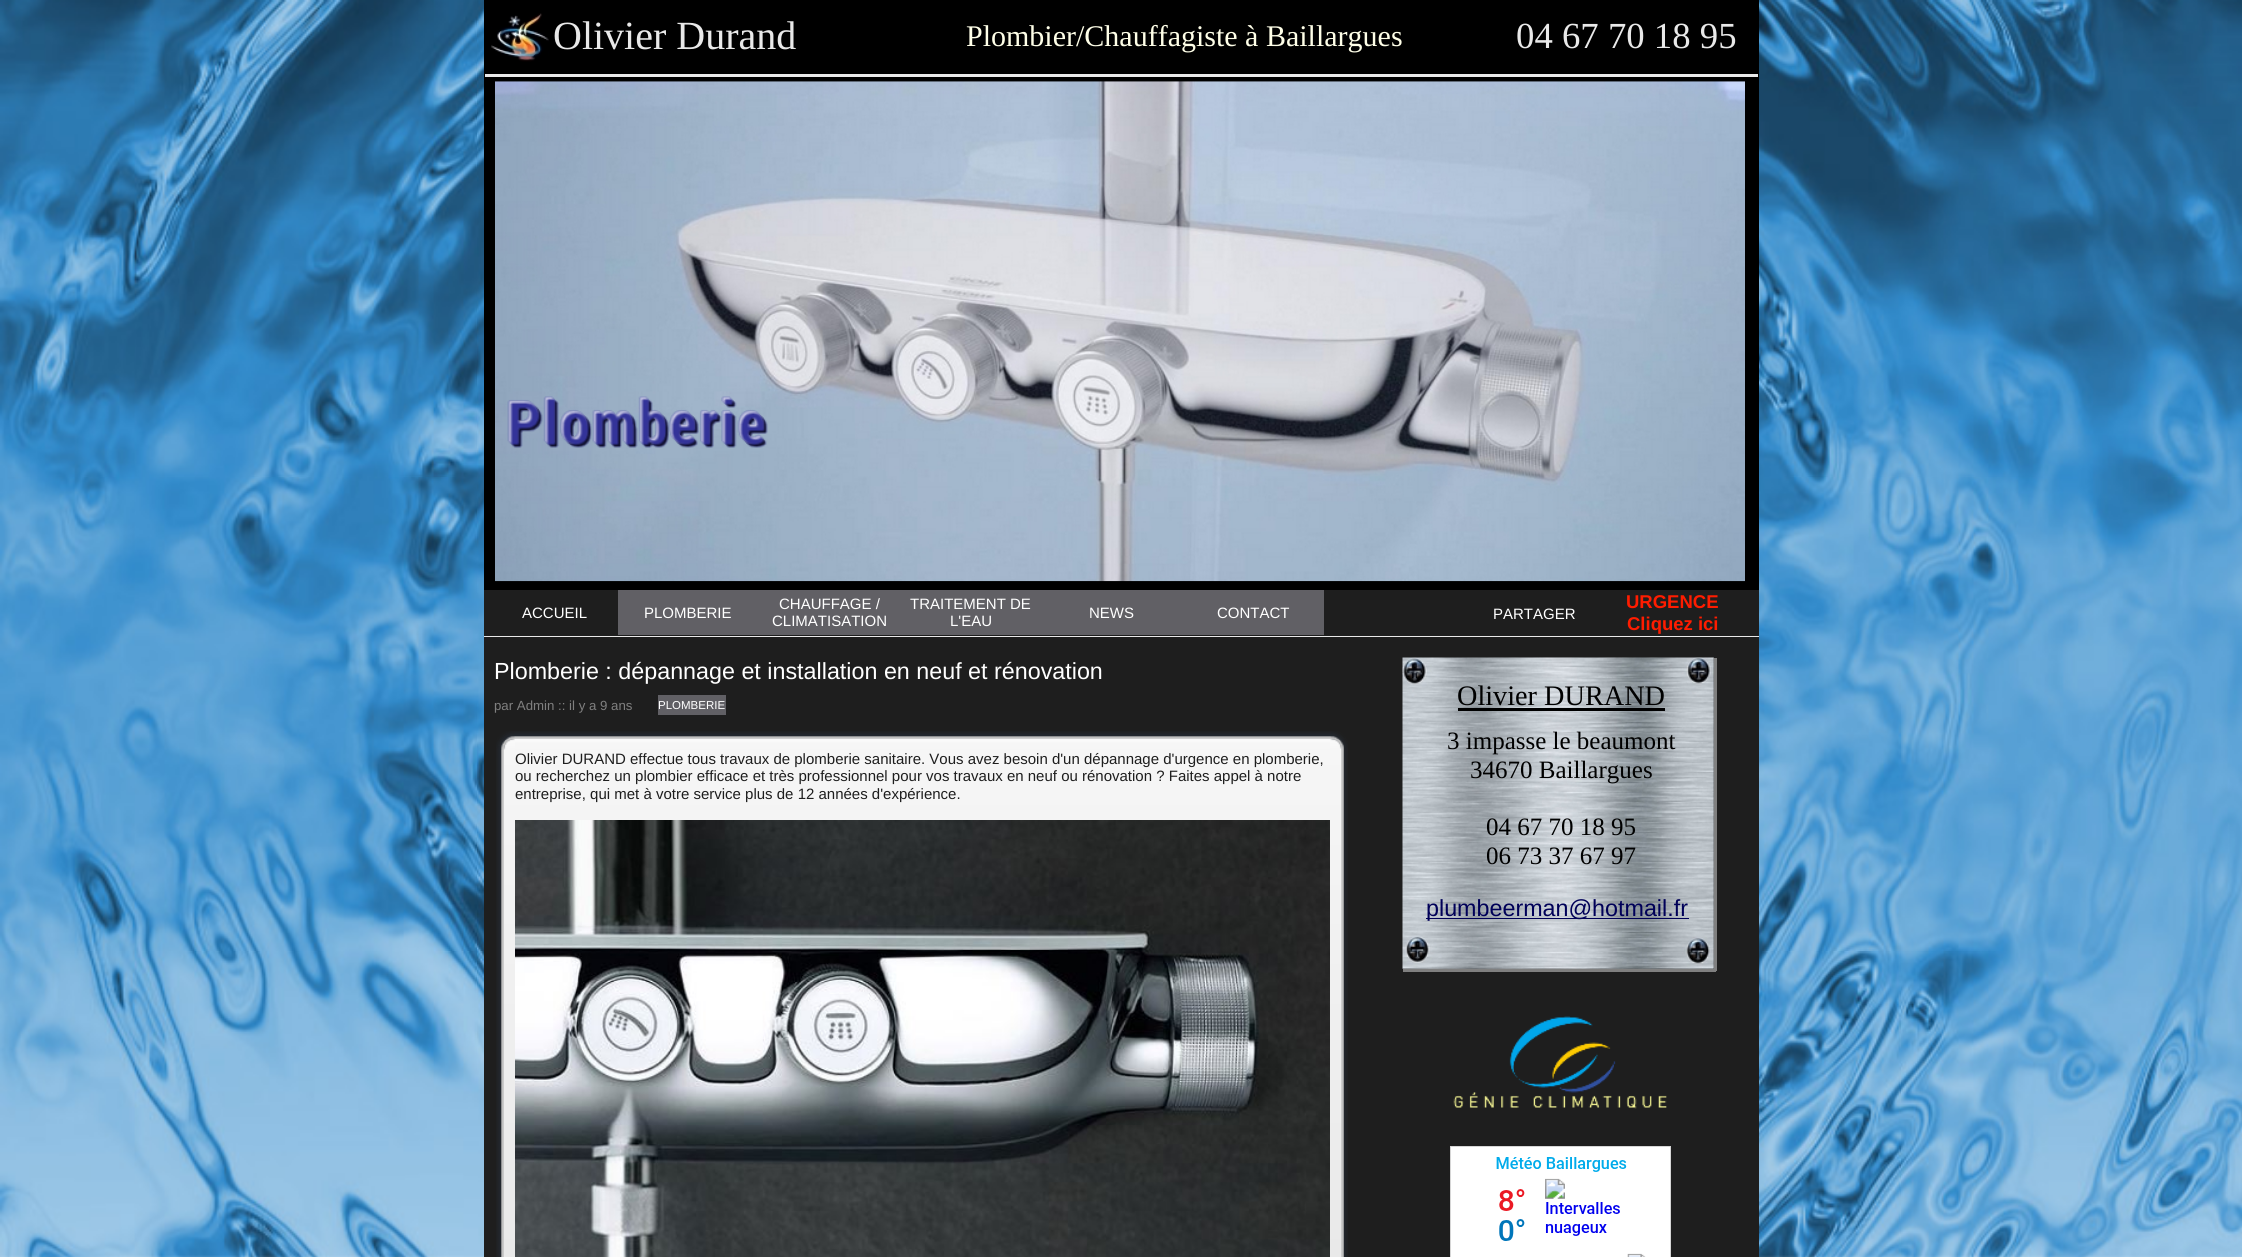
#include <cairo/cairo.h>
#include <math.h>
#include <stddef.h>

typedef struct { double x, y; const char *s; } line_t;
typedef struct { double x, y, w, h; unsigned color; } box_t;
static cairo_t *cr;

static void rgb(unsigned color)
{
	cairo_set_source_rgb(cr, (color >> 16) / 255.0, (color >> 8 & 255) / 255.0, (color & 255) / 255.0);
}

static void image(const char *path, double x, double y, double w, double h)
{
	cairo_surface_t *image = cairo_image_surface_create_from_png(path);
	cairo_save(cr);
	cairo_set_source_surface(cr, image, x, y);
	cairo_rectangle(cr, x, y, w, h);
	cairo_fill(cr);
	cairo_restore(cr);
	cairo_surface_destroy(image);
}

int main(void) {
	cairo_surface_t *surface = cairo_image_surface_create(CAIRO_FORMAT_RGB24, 2242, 1257);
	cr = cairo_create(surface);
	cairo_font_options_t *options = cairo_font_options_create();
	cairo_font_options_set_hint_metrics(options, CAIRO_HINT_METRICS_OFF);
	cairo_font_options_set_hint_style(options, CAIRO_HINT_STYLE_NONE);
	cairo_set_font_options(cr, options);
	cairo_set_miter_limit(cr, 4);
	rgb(0xffffff);
	cairo_paint(cr);
	image("img/1.png", 0, 0, 2242, 1257);
	rgb(0x000000);
	cairo_rectangle(cr, 484, 0, 1275, 590);
	cairo_fill(cr);
	rgb(0xe9e9e9);
	cairo_rectangle(cr, 485, 74, 1273, 3);
	cairo_fill(cr);
	image("img/2.png", 491, 13, 58, 49);
	image("img/3.png", 495, 81, 1250, 501);
	image("img/4.png", 507, 396, 261, 52);
	{
		static const box_t items[] = {
			{484, 590, 1275, 667, 0x1e1e1e},
			{484, 636, 1275, 1, 0xe9e9e9},
			{618, 590, 706, 45, 0x616065},
			{658, 695, 68, 20, 0x616065},
			{515, 742, 815, 1, 0xffffff},
		};
		for (size_t i = 0; i < sizeof items / sizeof *items; i++) {
			rgb(items[i].color);
			cairo_rectangle(cr, items[i].x, items[i].y, items[i].w, items[i].h);
			cairo_fill(cr);
		}
	}
	image("img/5.png", 515, 742, 815, 8);
	image("img/6.png", 496, 731, 19, 19);
	image("img/7.png", 515, 731, 815, 11);
	image("img/8.png", 1330, 731, 18, 19);
	image("img/9.png", 496, 750, 19, 507);
	image("img/10.png", 515, 750, 815, 70);
	image("img/11.png", 515, 820, 815, 437);
	image("img/12.png", 1330, 750, 18, 507);
	rgb(0x808080);
	cairo_rectangle(cr, 1714, 658, 3, 313);
	cairo_fill(cr);
	cairo_rectangle(cr, 1403, 969, 313, 3);
	cairo_fill(cr);
	image("img/13.png", 1402, 657, 312, 312);
	rgb(0x000000);
	cairo_rectangle(cr, 1458, 708, 207, 3);
	cairo_fill(cr);
	rgb(0x000058);
	cairo_rectangle(cr, 1426, 918, 263, 1);
	cairo_fill(cr);
	image("img/14.png", 1453, 1016, 214, 93);
	rgb(0xffffff);
	cairo_rectangle(cr, 1450.5, 1146.5, 220, 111);
	cairo_fill_preserve(cr);
	rgb(0xd6d6d6);
	cairo_set_line_width(cr, 1);
	cairo_stroke(cr);
	image("img/15.png", 1496, 1157, 150, 100);
	cairo_select_font_face(cr, "Liberation Serif", CAIRO_FONT_SLANT_NORMAL, CAIRO_FONT_WEIGHT_NORMAL);
	cairo_set_font_size(cr, 40);
	rgb(0xe9e9e9);
	cairo_move_to(cr, 553, 49);
	cairo_show_text(cr, "Olivier Durand");
	cairo_set_font_size(cr, 30);
	rgb(0xffffe8);
	cairo_move_to(cr, 966, 46);
	cairo_show_text(cr, "Plombier/Chauffagiste à Baillargues");
	cairo_set_font_size(cr, 36.75);
	rgb(0xe9e9e9);
	cairo_move_to(cr, 1516, 48);
	cairo_show_text(cr, "04 67 70 18 95");
	cairo_select_font_face(cr, "Liberation Sans", CAIRO_FONT_SLANT_NORMAL, CAIRO_FONT_WEIGHT_NORMAL);
	cairo_set_font_size(cr, 15);
	rgb(0xffffff);
	{
		static const line_t items[] = {
			{522, 618, "ACCUEIL"},
			{644, 618, "PLOMBERIE"},
			{779, 609, "CHAUFFAGE /"},
			{772, 626, "CLIMATISATION"},
			{910, 609, "TRAITEMENT DE"},
			{950, 626, "L'EAU"},
			{1089, 618, "NEWS"},
			{1217, 618, "CONTACT"},
		};
		for (size_t i = 0; i < sizeof items / sizeof *items; i++) {
			cairo_move_to(cr, items[i].x, items[i].y);
			cairo_show_text(cr, items[i].s);
		}
	}
	cairo_select_font_face(cr, "Liberation Sans", CAIRO_FONT_SLANT_NORMAL, CAIRO_FONT_WEIGHT_BOLD);
	cairo_set_font_size(cr, 18.5);
	rgb(0xff1c00);
	cairo_move_to(cr, 1626, 608);
	cairo_show_text(cr, "URGENCE");
	cairo_move_to(cr, 1627, 630);
	cairo_show_text(cr, "Cliquez ici");
	cairo_select_font_face(cr, "Liberation Sans", CAIRO_FONT_SLANT_NORMAL, CAIRO_FONT_WEIGHT_NORMAL);
	cairo_set_font_size(cr, 15);
	rgb(0xffffff);
	cairo_move_to(cr, 1493, 619);
	cairo_show_text(cr, "PARTAGER");
	cairo_set_font_size(cr, 23.3);
	cairo_move_to(cr, 494, 679);
	cairo_show_text(cr, "Plomberie : dépannage et installation en neuf et rénovation");
	cairo_set_font_size(cr, 13.25);
	rgb(0x808080);
	cairo_move_to(cr, 494, 710);
	cairo_show_text(cr, "par Admin :: il y a 9 ans");
	cairo_set_font_size(cr, 11.5);
	rgb(0xffffff);
	cairo_move_to(cr, 658, 709);
	cairo_show_text(cr, "PLOMBERIE");
	cairo_set_font_size(cr, 15);
	rgb(0x1e1e1e);
	{
		static const line_t items[] = {
			{515, 764, "Olivier DURAND effectue tous travaux de plomberie sanitaire. Vous avez besoin d'un dépannage d'urgence en plomberie,"},
			{515, 781, "ou recherchez un plombier efficace et très professionnel pour vos travaux en neuf ou rénovation ? Faites appel à notre"},
			{515, 799, "entreprise, qui met à votre service plus de 12 années d'expérience."},
		};
		for (size_t i = 0; i < sizeof items / sizeof *items; i++) {
			cairo_move_to(cr, items[i].x, items[i].y);
			cairo_show_text(cr, items[i].s);
		}
	}
	cairo_select_font_face(cr, "Liberation Serif", CAIRO_FONT_SLANT_NORMAL, CAIRO_FONT_WEIGHT_NORMAL);
	cairo_set_font_size(cr, 28.25);
	rgb(0x000000);
	cairo_move_to(cr, 1457, 705);
	cairo_show_text(cr, "Olivier DURAND");
	cairo_set_font_size(cr, 25);
	{
		static const line_t items[] = {
			{1447, 749, "3 impasse le beaumont"},
			{1470, 778, "34670 Baillargues"},
			{1486, 835, "04 67 70 18 95"},
			{1486, 864, "06 73 37 67 97"},
		};
		for (size_t i = 0; i < sizeof items / sizeof *items; i++) {
			cairo_move_to(cr, items[i].x, items[i].y);
			cairo_show_text(cr, items[i].s);
		}
	}
	cairo_select_font_face(cr, "Liberation Sans", CAIRO_FONT_SLANT_NORMAL, CAIRO_FONT_WEIGHT_NORMAL);
	cairo_set_font_size(cr, 23.3);
	rgb(0x000058);
	cairo_move_to(cr, 1426, 916);
	cairo_show_text(cr, "plumbeerman@hotmail.fr");
	cairo_surface_write_to_png(surface, "page.png");
	cairo_font_options_destroy(options);
	cairo_destroy(cr);
	cairo_surface_destroy(surface);
	return 0;
}
